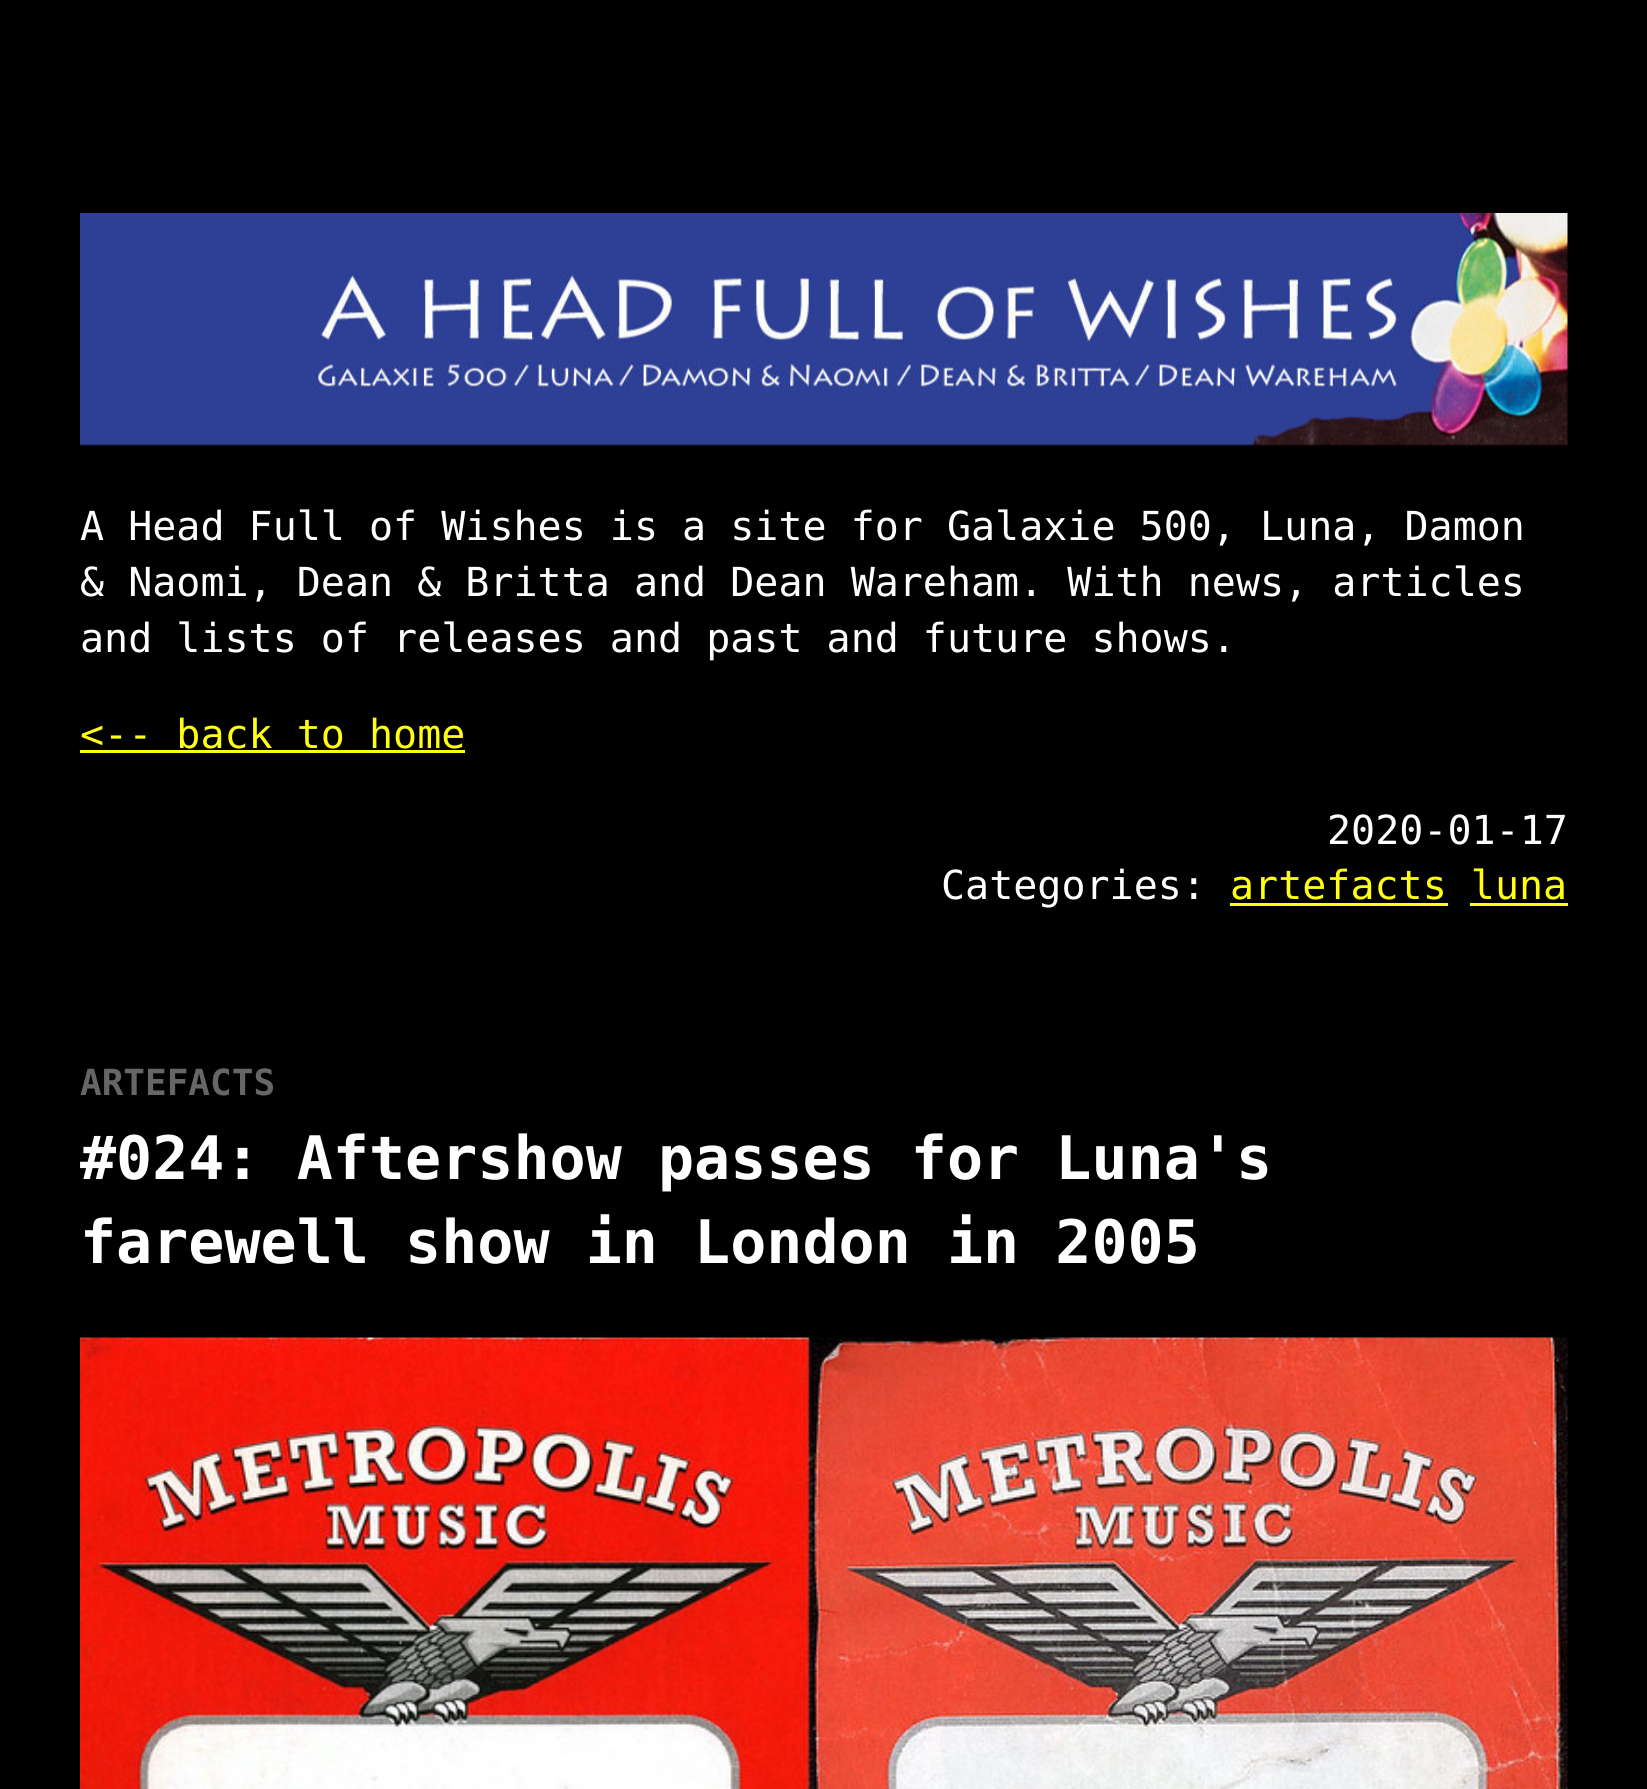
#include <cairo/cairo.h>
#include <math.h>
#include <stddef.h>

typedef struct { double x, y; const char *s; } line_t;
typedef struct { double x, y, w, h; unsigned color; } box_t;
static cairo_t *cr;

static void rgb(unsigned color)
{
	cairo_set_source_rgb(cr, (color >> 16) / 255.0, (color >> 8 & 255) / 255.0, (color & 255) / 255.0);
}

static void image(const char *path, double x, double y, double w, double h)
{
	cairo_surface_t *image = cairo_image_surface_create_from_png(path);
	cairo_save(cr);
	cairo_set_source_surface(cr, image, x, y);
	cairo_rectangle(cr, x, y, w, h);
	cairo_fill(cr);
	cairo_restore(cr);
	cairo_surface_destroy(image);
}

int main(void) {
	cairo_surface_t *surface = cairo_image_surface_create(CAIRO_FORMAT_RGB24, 1647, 1789);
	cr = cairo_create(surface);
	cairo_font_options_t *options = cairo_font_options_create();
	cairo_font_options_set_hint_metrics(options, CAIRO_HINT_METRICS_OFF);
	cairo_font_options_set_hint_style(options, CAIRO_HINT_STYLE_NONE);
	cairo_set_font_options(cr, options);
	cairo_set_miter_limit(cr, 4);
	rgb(0x000000);
	cairo_paint(cr);
	image("img/1.png", 80, 213, 1488, 233);
	{
		static const box_t items[] = {
			{80, 750, 385, 3, 0xffff11},
			{1230, 903, 218, 3, 0xffff11},
			{1470, 903, 98, 3, 0xffff11},
		};
		for (size_t i = 0; i < sizeof items / sizeof *items; i++) {
			rgb(items[i].color);
			cairo_rectangle(cr, items[i].x, items[i].y, items[i].w, items[i].h);
			cairo_fill(cr);
		}
	}
	image("img/2.png", 80, 1337, 1488, 452);
	cairo_select_font_face(cr, "DejaVu Sans Mono", CAIRO_FONT_SLANT_NORMAL, CAIRO_FONT_WEIGHT_NORMAL);
	cairo_set_font_size(cr, 40);
	rgb(0xffffff);
	{
		static const line_t items[] = {
			{80, 540, "A Head Full of Wishes is a site for Galaxie 500, Luna, Damon"},
			{80, 596, "& Naomi, Dean & Britta and Dean Wareham. With news, articles"},
			{80, 652, "and lists of releases and past and future shows."},
		};
		for (size_t i = 0; i < sizeof items / sizeof *items; i++) {
			cairo_move_to(cr, items[i].x, items[i].y);
			cairo_show_text(cr, items[i].s);
		}
	}
	rgb(0xffff11);
	cairo_move_to(cr, 80, 748);
	cairo_show_text(cr, "<-- back to home");
	rgb(0xffffff);
	cairo_move_to(cr, 1327, 844);
	cairo_show_text(cr, "2020-01-17");
	cairo_move_to(cr, 941, 899);
	cairo_show_text(cr, "Categories:");
	rgb(0xffff11);
	cairo_move_to(cr, 1230, 899);
	cairo_show_text(cr, "artefacts luna");
	cairo_select_font_face(cr, "DejaVu Sans Mono", CAIRO_FONT_SLANT_NORMAL, CAIRO_FONT_WEIGHT_BOLD);
	cairo_set_font_size(cr, 36);
	rgb(0x666666);
	cairo_move_to(cr, 80, 1095);
	cairo_show_text(cr, "ARTEFACTS");
	cairo_set_font_size(cr, 60);
	rgb(0xffffff);
	cairo_move_to(cr, 80, 1179);
	cairo_show_text(cr, "#024: Aftershow passes for Luna's");
	cairo_move_to(cr, 80, 1263);
	cairo_show_text(cr, "farewell show in London in 2005");
	cairo_surface_write_to_png(surface, "page.png");
	cairo_font_options_destroy(options);
	cairo_destroy(cr);
	cairo_surface_destroy(surface);
	return 0;
}
